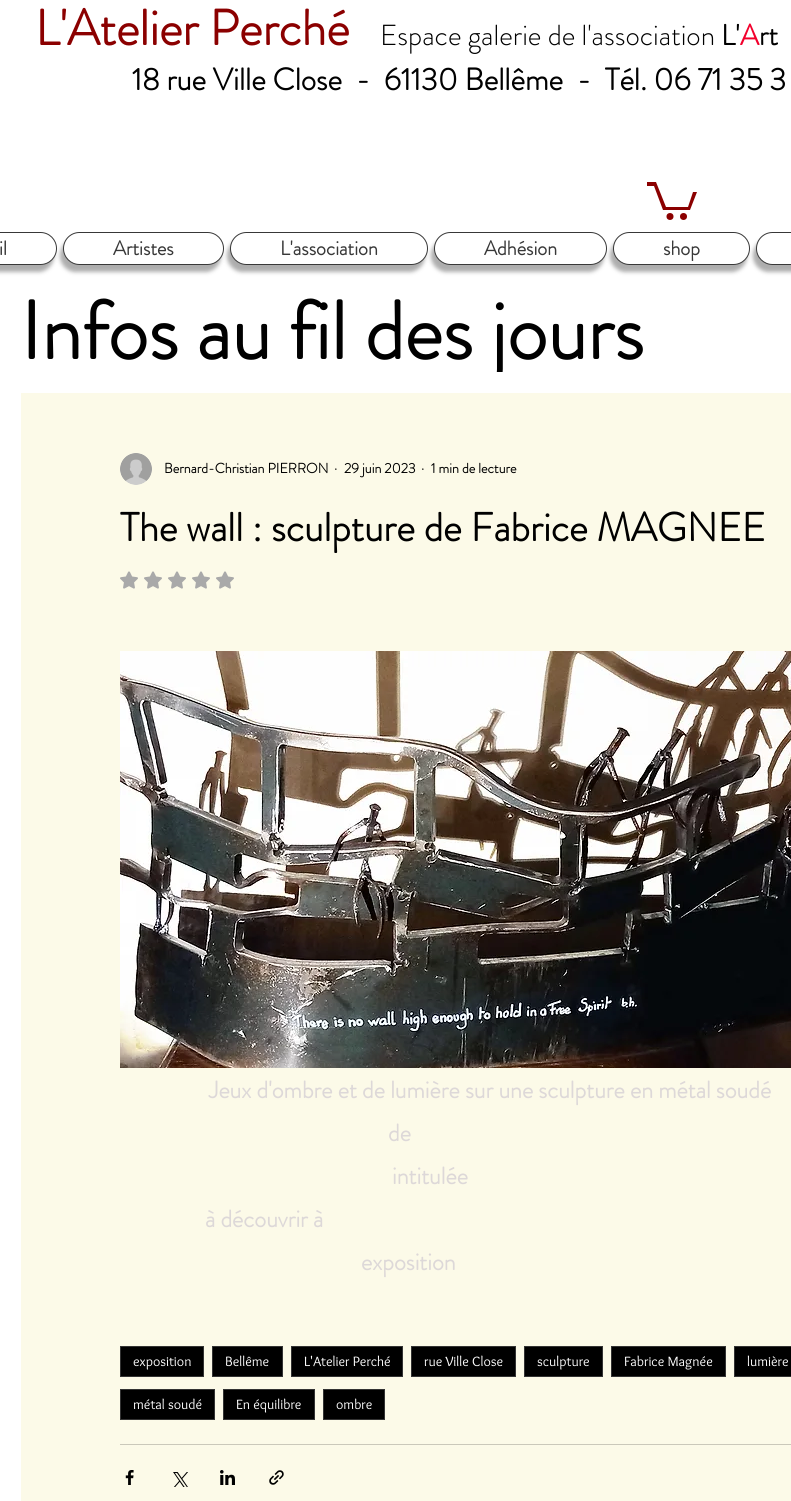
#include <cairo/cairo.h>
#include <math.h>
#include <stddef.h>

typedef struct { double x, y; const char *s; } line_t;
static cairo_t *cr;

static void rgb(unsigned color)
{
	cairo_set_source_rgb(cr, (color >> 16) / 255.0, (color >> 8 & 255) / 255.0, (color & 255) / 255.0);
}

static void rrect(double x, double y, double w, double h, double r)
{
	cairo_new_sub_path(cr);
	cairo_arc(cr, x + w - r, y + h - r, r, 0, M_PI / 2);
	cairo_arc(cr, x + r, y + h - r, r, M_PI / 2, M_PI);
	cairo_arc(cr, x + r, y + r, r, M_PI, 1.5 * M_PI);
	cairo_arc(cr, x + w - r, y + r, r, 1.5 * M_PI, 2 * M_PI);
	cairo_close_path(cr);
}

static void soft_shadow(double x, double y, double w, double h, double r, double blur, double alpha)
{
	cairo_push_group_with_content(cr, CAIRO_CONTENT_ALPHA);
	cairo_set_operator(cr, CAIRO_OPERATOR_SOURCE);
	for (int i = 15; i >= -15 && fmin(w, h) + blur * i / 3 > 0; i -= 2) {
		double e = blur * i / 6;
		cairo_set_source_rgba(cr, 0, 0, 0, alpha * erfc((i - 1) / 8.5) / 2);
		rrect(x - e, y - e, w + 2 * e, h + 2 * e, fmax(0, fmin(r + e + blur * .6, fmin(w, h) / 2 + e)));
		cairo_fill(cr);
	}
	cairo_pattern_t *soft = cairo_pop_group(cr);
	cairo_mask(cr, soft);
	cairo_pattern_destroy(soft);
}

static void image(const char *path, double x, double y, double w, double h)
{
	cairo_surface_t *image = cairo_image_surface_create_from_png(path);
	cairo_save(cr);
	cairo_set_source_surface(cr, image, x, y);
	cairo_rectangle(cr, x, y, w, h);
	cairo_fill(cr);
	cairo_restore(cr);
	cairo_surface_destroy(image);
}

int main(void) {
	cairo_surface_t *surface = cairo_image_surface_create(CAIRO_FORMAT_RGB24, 791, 1501);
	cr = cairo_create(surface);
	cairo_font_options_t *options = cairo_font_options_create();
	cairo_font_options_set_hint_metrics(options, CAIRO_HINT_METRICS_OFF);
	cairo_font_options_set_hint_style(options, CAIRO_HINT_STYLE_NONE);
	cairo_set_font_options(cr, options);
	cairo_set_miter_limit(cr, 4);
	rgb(0xffffff);
	cairo_paint(cr);
	rgb(0x8b0000);
	cairo_new_path(cr);
	cairo_move_to(cr, 697, 192);
	cairo_line_to(cr, 690, 210);
	cairo_line_to(cr, 663, 210);
	cairo_line_to(cr, 654, 186);
	cairo_line_to(cr, 647, 186);
	cairo_line_to(cr, 647, 182);
	cairo_line_to(cr, 656, 182);
	cairo_line_to(cr, 666, 207);
	cairo_line_to(cr, 688, 207);
	cairo_line_to(cr, 693, 192);
	cairo_fill(cr);
	cairo_arc(cr, 683.5, 216.5, 3.5, 0, 2 * M_PI);
	cairo_fill(cr);
	cairo_arc(cr, 670, 216.5, 3.5, 0, 2 * M_PI);
	cairo_fill(cr);
	rgb(0x777777);
	soft_shadow(-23, 239, 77, 33, 16.5, 2, 0.6);
	rgb(0xffffff);
	rrect(-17.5, 232.5, 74, 32, 16);
	cairo_fill_preserve(cr);
	rgb(0x383838);
	cairo_set_line_width(cr, 1);
	cairo_stroke(cr);
	rgb(0x777777);
	soft_shadow(60, 239, 161, 33, 16.5, 2, 0.6);
	rgb(0xffffff);
	rrect(63.5, 232.5, 160, 32, 16);
	cairo_fill_preserve(cr);
	rgb(0x383838);
	cairo_stroke(cr);
	rgb(0x777777);
	soft_shadow(227, 239, 198, 33, 16.5, 2, 0.6);
	rgb(0xffffff);
	rrect(230.5, 232.5, 197, 32, 16);
	cairo_fill_preserve(cr);
	rgb(0x383838);
	cairo_stroke(cr);
	rgb(0x777777);
	soft_shadow(431, 239, 173, 33, 16.5, 2, 0.6);
	rgb(0xffffff);
	rrect(434.5, 232.5, 172, 32, 16);
	cairo_fill_preserve(cr);
	rgb(0x383838);
	cairo_stroke(cr);
	rgb(0x777777);
	soft_shadow(610, 239, 137, 33, 16.5, 2, 0.6);
	rgb(0xffffff);
	rrect(613.5, 232.5, 136, 32, 16);
	cairo_fill_preserve(cr);
	rgb(0x383838);
	cairo_stroke(cr);
	rgb(0x777777);
	soft_shadow(753, 239, 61, 33, 16.5, 2, 0.6);
	rgb(0xffffff);
	rrect(756.5, 232.5, 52, 32, 16);
	cairo_fill_preserve(cr);
	rgb(0x383838);
	cairo_stroke(cr);
	rgb(0xfcfae8);
	cairo_rectangle(cr, 21, 393, 770, 1108);
	cairo_fill(cr);
	image("img/1.png", 120, 453, 32, 32);
	image("img/2.png", 120, 571, 18, 18);
	image("img/2.png", 144, 571, 18, 18);
	image("img/2.png", 168, 571, 18, 18);
	image("img/2.png", 192, 571, 18, 18);
	image("img/2.png", 216, 571, 18, 18);
	image("img/3.png", 120, 651, 671, 417);
	rgb(0x000000);
	cairo_rectangle(cr, 120.5, 1346.5, 83, 30);
	cairo_fill_preserve(cr);
	rgb(0x333333);
	cairo_stroke(cr);
	rgb(0x000000);
	cairo_rectangle(cr, 212.5, 1346.5, 70, 30);
	cairo_fill_preserve(cr);
	rgb(0x333333);
	cairo_stroke(cr);
	rgb(0x000000);
	cairo_rectangle(cr, 291.5, 1346.5, 111, 30);
	cairo_fill_preserve(cr);
	rgb(0x333333);
	cairo_stroke(cr);
	rgb(0x000000);
	cairo_rectangle(cr, 411.5, 1346.5, 104, 30);
	cairo_fill_preserve(cr);
	rgb(0x333333);
	cairo_stroke(cr);
	rgb(0x000000);
	cairo_rectangle(cr, 524.5, 1346.5, 78, 30);
	cairo_fill_preserve(cr);
	rgb(0x333333);
	cairo_stroke(cr);
	rgb(0x000000);
	cairo_rectangle(cr, 611.5, 1346.5, 114, 30);
	cairo_fill_preserve(cr);
	rgb(0x333333);
	cairo_stroke(cr);
	rgb(0x000000);
	cairo_rectangle(cr, 734.5, 1346.5, 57, 30);
	cairo_fill_preserve(cr);
	rgb(0x333333);
	cairo_stroke(cr);
	rgb(0x000000);
	cairo_rectangle(cr, 120.5, 1389.5, 94, 30);
	cairo_fill_preserve(cr);
	rgb(0x333333);
	cairo_stroke(cr);
	rgb(0x000000);
	cairo_rectangle(cr, 223.5, 1389.5, 91, 30);
	cairo_fill_preserve(cr);
	rgb(0x333333);
	cairo_stroke(cr);
	rgb(0x000000);
	cairo_rectangle(cr, 323.5, 1389.5, 61, 30);
	cairo_fill_preserve(cr);
	rgb(0x333333);
	cairo_stroke(cr);
	rgb(0xcac8ba);
	cairo_rectangle(cr, 120, 1444, 671, 1);
	cairo_fill(cr);
	image("img/4.png", 125, 1470, 9, 15);
	image("img/5.png", 173, 1472, 15, 15);
	image("img/6.png", 220, 1470, 15, 15);
	image("img/7.png", 269, 1470, 15, 15);
	cairo_select_font_face(cr, "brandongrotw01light", CAIRO_FONT_SLANT_NORMAL, CAIRO_FONT_WEIGHT_BOLD);
	cairo_set_font_size(cr, 50);
	rgb(0x8b0000);
	cairo_move_to(cr, 35, 45);
	cairo_show_text(cr, "L'Atelier Perché");
	cairo_select_font_face(cr, "brandongrotw01light Light", CAIRO_FONT_SLANT_NORMAL, CAIRO_FONT_WEIGHT_NORMAL);
	cairo_set_font_size(cr, 29);
	rgb(0x000000);
	cairo_move_to(cr, 380, 45);
	cairo_show_text(cr, "Espace galerie de l'association");
	cairo_select_font_face(cr, "brandongrotw01light", CAIRO_FONT_SLANT_NORMAL, CAIRO_FONT_WEIGHT_BOLD);
	cairo_move_to(cr, 721, 45);
	cairo_show_text(cr, "L'");
	rgb(0xf2002c);
	cairo_move_to(cr, 740, 45);
	cairo_show_text(cr, "A");
	rgb(0x000000);
	cairo_move_to(cr, 759, 45);
	cairo_show_text(cr, "rt");
	cairo_set_font_size(cr, 31);
	cairo_move_to(cr, 132, 90);
	cairo_show_text(cr, "18 rue Ville Close  -  61130 Bellême  -  Tél. 06 71 35 3");
	cairo_set_font_size(cr, 20);
	rgb(0x383838);
	{
		static const line_t items[] = {
			{-1, 255, "il"},
			{113, 255, "Artistes"},
			{280, 255, "L'association"},
			{484, 255, "Adhésion"},
			{663, 255, "shop"},
		};
		for (size_t i = 0; i < sizeof items / sizeof *items; i++) {
			cairo_move_to(cr, items[i].x, items[i].y);
			cairo_show_text(cr, items[i].s);
		}
	}
	cairo_save(cr);
	cairo_rectangle(cr, 17, 292, 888, 80);
	cairo_clip(cr);
	cairo_set_font_size(cr, 82);
	rgb(0x000000);
	cairo_move_to(cr, 20, 359);
	cairo_show_text(cr, "Infos au fil des jours");
	cairo_restore(cr);
	cairo_set_font_size(cr, 14);
	rgb(0x000000);
	{
		static const line_t items[] = {
			{164, 473, "Bernard-Christian PIERRON"},
			{334, 473, "·"},
			{344, 473, "29 juin 2023"},
			{421, 473, "·"},
			{431, 473, "1 min de lecture"},
		};
		for (size_t i = 0; i < sizeof items / sizeof *items; i++) {
			cairo_move_to(cr, items[i].x, items[i].y);
			cairo_show_text(cr, items[i].s);
		}
	}
	cairo_set_font_size(cr, 40);
	cairo_move_to(cr, 120, 541);
	cairo_show_text(cr, "The wall : sculpture de Fabrice MAGNEE");
	cairo_set_font_size(cr, 24);
	rgb(0xddd8d8);
	{
		static const line_t items[] = {
			{209, 1098, "Jeux d'ombre et de lumière sur une sculpture en métal soudé"},
			{388, 1141, "de"},
			{392, 1184, "intitulée"},
			{205, 1227, "à découvrir à"},
			{361, 1270, "exposition"},
		};
		for (size_t i = 0; i < sizeof items / sizeof *items; i++) {
			cairo_move_to(cr, items[i].x, items[i].y);
			cairo_show_text(cr, items[i].s);
		}
	}
	cairo_select_font_face(cr, "Overlock", CAIRO_FONT_SLANT_NORMAL, CAIRO_FONT_WEIGHT_NORMAL);
	cairo_set_font_size(cr, 14);
	rgb(0xffffff);
	{
		static const line_t items[] = {
			{133, 1366, "exposition"},
			{225, 1366, "Bellême"},
			{304, 1366, "L'Atelier Perché"},
			{424, 1366, "rue Ville Close"},
			{537, 1366, "sculpture"},
			{624, 1366, "Fabrice Magnée"},
			{747, 1366, "lumière"},
			{133, 1409, "métal soudé"},
			{236, 1409, "En équilibre"},
			{336, 1409, "ombre"},
		};
		for (size_t i = 0; i < sizeof items / sizeof *items; i++) {
			cairo_move_to(cr, items[i].x, items[i].y);
			cairo_show_text(cr, items[i].s);
		}
	}
	cairo_surface_write_to_png(surface, "page.png");
	cairo_font_options_destroy(options);
	cairo_destroy(cr);
	cairo_surface_destroy(surface);
	return 0;
}
